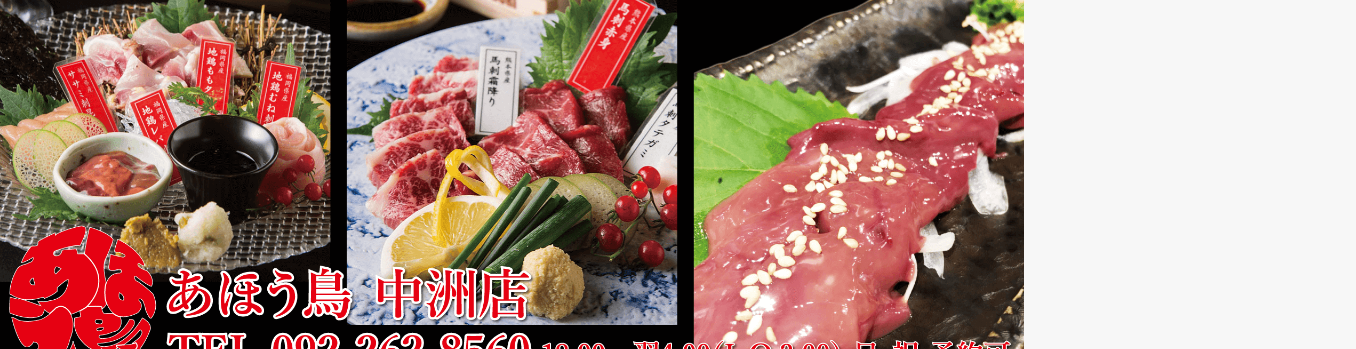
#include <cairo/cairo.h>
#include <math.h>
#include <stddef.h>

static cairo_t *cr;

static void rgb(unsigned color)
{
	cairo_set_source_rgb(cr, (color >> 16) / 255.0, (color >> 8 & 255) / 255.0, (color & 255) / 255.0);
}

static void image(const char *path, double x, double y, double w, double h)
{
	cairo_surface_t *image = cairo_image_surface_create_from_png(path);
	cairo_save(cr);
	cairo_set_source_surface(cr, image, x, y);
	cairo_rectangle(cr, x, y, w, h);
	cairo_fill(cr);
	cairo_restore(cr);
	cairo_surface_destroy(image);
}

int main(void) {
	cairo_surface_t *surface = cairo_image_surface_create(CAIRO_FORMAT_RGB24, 1356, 349);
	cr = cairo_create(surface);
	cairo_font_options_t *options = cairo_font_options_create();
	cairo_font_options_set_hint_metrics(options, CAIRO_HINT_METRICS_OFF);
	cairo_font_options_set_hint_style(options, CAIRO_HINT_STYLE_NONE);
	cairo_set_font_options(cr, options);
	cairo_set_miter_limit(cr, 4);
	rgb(0xf7f7f7);
	cairo_paint(cr);
	image("img/1.png", 0, 0, 1024, 349);
	cairo_surface_write_to_png(surface, "page.png");
	cairo_font_options_destroy(options);
	cairo_destroy(cr);
	cairo_surface_destroy(surface);
	return 0;
}
